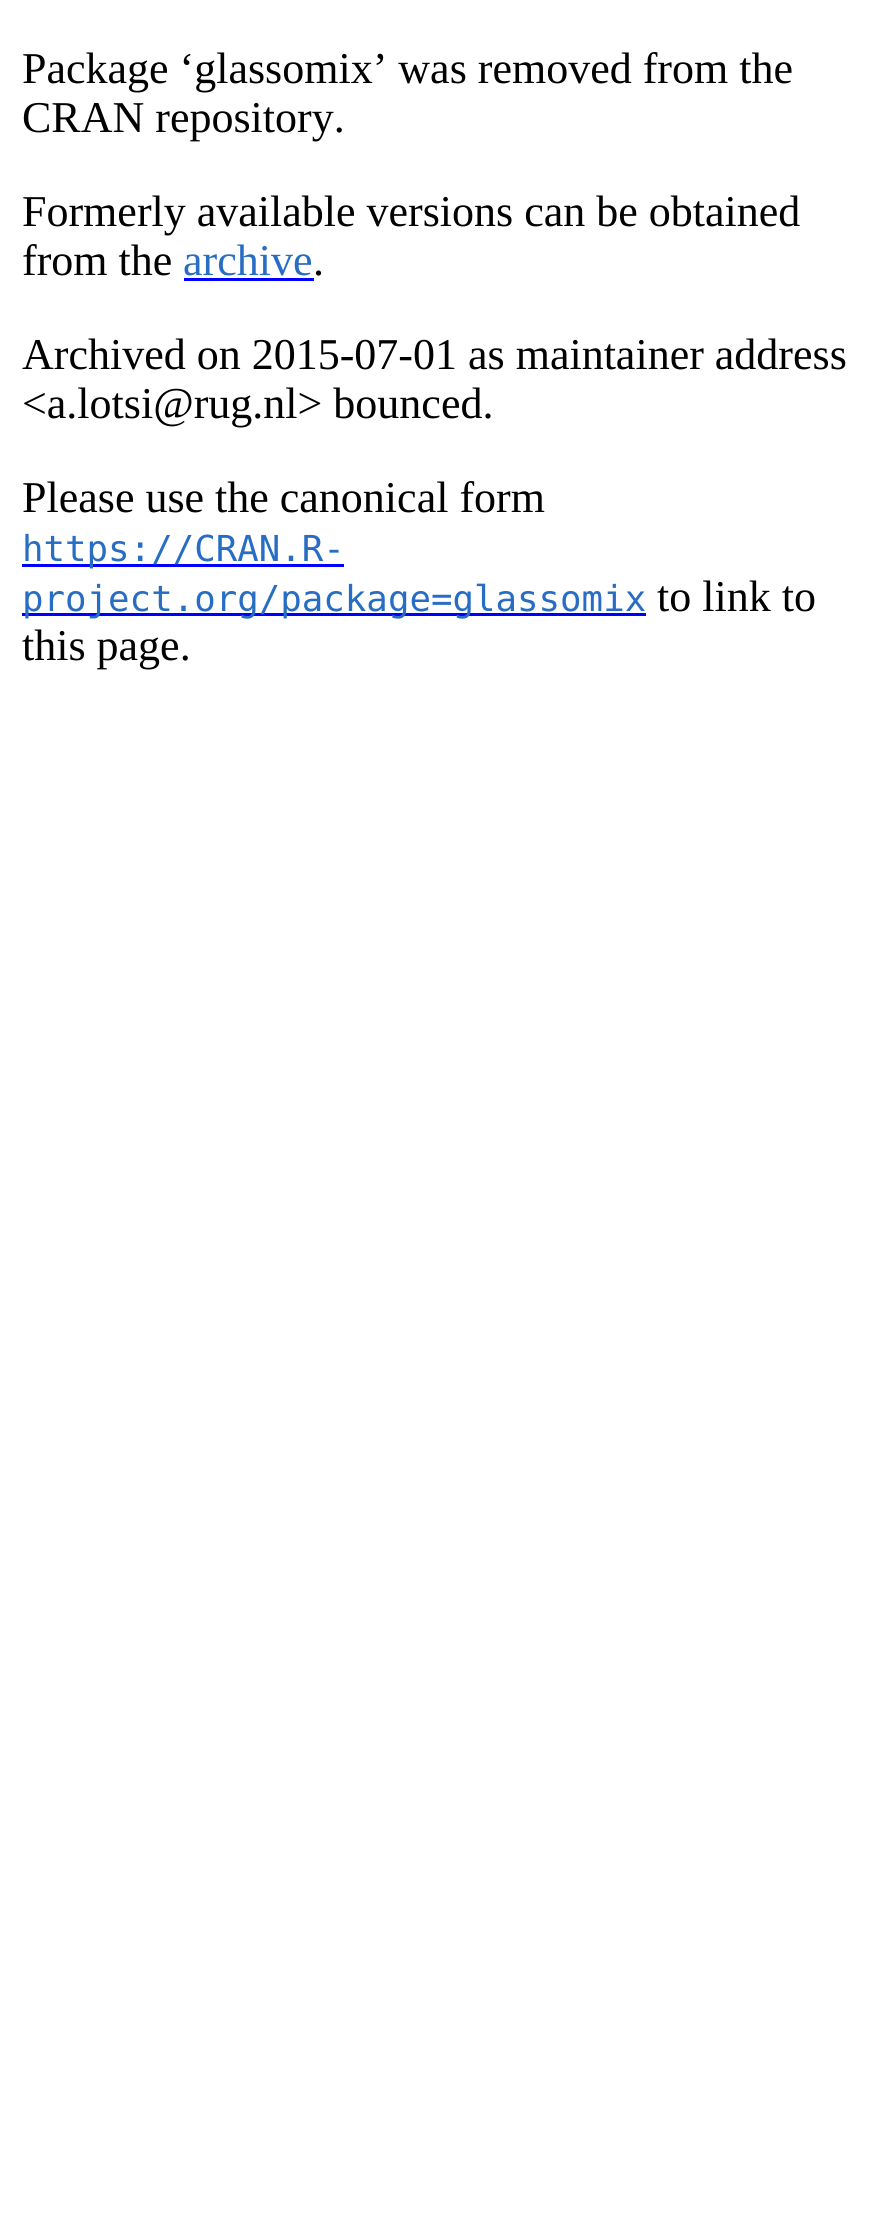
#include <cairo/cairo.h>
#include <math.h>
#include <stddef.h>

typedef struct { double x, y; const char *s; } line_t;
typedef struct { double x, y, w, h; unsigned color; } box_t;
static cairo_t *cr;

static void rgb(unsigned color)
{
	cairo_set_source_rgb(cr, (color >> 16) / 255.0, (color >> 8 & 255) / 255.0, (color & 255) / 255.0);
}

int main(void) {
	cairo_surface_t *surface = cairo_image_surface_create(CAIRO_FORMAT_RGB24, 877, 2227);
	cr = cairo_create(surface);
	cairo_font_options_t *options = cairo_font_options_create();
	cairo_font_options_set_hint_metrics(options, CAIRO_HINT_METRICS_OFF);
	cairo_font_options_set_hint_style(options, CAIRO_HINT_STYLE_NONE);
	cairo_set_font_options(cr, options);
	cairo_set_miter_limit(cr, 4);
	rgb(0xffffff);
	cairo_paint(cr);
	{
		static const box_t items[] = {
			{184, 278, 130, 3, 0x0000ff},
			{22, 564, 322, 3, 0x0000ff},
			{22, 613, 624, 3, 0x0000ff},
		};
		for (size_t i = 0; i < sizeof items / sizeof *items; i++) {
			rgb(items[i].color);
			cairo_rectangle(cr, items[i].x, items[i].y, items[i].w, items[i].h);
			cairo_fill(cr);
		}
	}
	cairo_select_font_face(cr, "Liberation Serif", CAIRO_FONT_SLANT_NORMAL, CAIRO_FONT_WEIGHT_NORMAL);
	cairo_set_font_size(cr, 44);
	rgb(0x000000);
	{
		static const line_t items[] = {
			{22, 83, "Package ‘glassomix’ was removed from the"},
			{22, 132, "CRAN repository."},
			{22, 226, "Formerly available versions can be obtained"},
			{22, 275, "from the"},
		};
		for (size_t i = 0; i < sizeof items / sizeof *items; i++) {
			cairo_move_to(cr, items[i].x, items[i].y);
			cairo_show_text(cr, items[i].s);
		}
	}
	rgb(0x276dc3);
	cairo_move_to(cr, 183, 275);
	cairo_show_text(cr, "archive");
	rgb(0x000000);
	{
		static const line_t items[] = {
			{313, 275, "."},
			{22, 369, "Archived on 2015-07-01 as maintainer address"},
			{22, 418, "<a.lotsi@rug.nl> bounced."},
			{22, 512, "Please use the canonical form"},
		};
		for (size_t i = 0; i < sizeof items / sizeof *items; i++) {
			cairo_move_to(cr, items[i].x, items[i].y);
			cairo_show_text(cr, items[i].s);
		}
	}
	cairo_select_font_face(cr, "DejaVu Sans Mono", CAIRO_FONT_SLANT_NORMAL, CAIRO_FONT_WEIGHT_NORMAL);
	cairo_set_font_size(cr, 35.75);
	rgb(0x276dc3);
	cairo_move_to(cr, 22, 561);
	cairo_show_text(cr, "https://CRAN.R-");
	cairo_move_to(cr, 22, 611);
	cairo_show_text(cr, "project.org/package=glassomix");
	cairo_select_font_face(cr, "Liberation Serif", CAIRO_FONT_SLANT_NORMAL, CAIRO_FONT_WEIGHT_NORMAL);
	cairo_set_font_size(cr, 44);
	rgb(0x000000);
	cairo_move_to(cr, 657, 611);
	cairo_show_text(cr, "to link to");
	cairo_move_to(cr, 22, 660);
	cairo_show_text(cr, "this page.");
	cairo_surface_write_to_png(surface, "page.png");
	cairo_font_options_destroy(options);
	cairo_destroy(cr);
	cairo_surface_destroy(surface);
	return 0;
}
